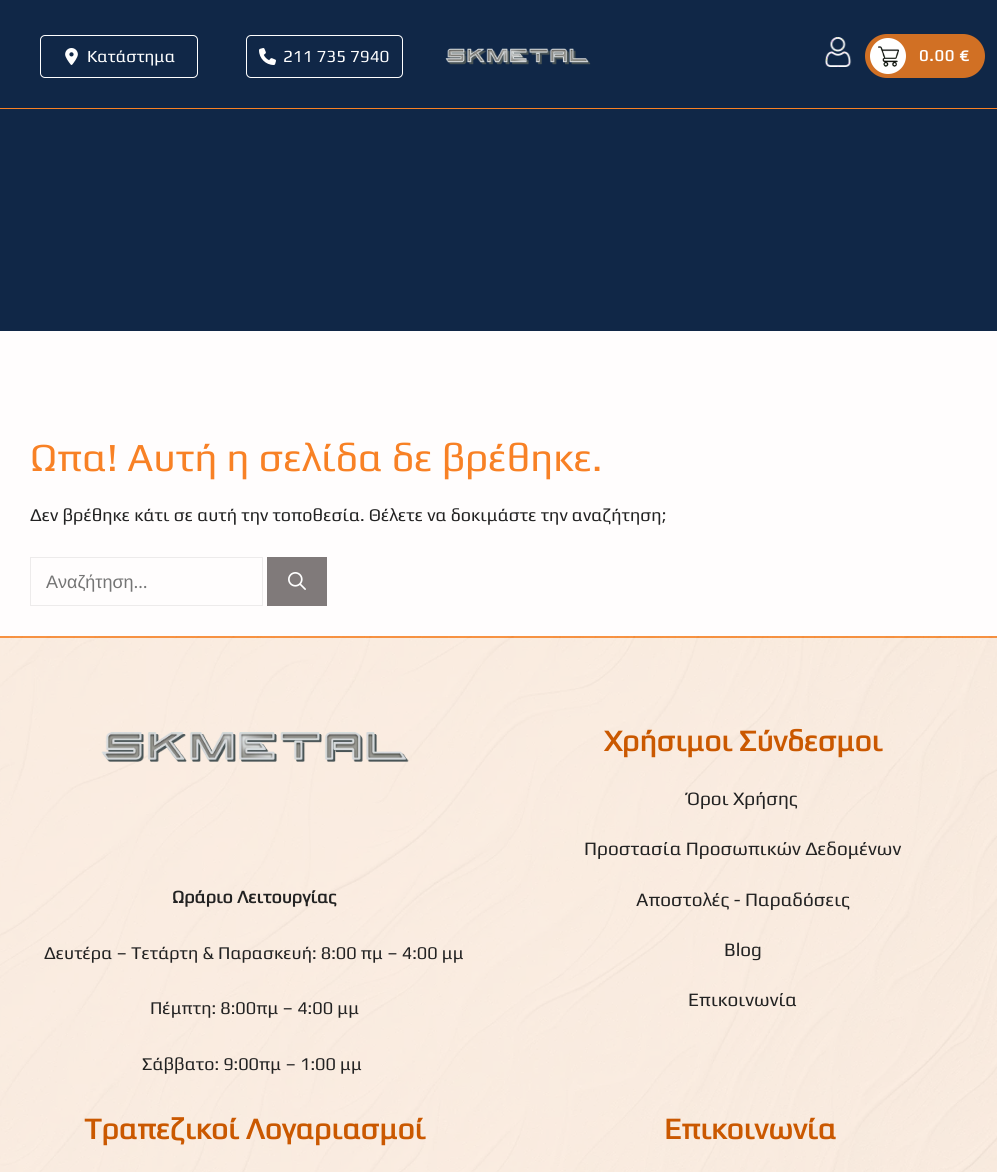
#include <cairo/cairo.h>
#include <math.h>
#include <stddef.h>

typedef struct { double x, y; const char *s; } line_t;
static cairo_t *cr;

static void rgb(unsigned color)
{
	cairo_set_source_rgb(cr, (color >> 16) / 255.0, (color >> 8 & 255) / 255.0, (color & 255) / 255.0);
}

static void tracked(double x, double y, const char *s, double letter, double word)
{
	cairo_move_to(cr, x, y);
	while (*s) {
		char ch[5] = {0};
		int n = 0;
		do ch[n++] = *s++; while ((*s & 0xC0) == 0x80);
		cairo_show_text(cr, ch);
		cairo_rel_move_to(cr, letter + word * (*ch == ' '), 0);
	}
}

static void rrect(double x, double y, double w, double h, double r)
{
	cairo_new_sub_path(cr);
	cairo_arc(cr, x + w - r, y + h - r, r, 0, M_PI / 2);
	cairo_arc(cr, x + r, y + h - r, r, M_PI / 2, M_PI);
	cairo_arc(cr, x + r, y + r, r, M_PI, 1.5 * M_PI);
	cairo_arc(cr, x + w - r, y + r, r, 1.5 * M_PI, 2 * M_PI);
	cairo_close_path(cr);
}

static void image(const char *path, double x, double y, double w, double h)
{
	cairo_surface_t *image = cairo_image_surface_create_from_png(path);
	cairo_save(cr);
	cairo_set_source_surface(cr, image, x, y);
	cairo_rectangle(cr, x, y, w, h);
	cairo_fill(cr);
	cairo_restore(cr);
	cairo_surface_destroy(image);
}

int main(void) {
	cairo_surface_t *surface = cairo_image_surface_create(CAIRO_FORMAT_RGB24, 997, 1172);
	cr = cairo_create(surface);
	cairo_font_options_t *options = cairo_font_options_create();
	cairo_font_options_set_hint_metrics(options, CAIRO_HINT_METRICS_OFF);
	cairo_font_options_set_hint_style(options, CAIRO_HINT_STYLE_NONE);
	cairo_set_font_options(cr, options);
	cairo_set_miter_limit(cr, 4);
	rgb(0xfffdfd);
	cairo_paint(cr);
	rgb(0x102747);
	cairo_rectangle(cr, 0, 0, 997, 108);
	cairo_fill(cr);
	rrect(40.5, 35.5, 157, 42, 4.5);
	rgb(0xffffff);
	cairo_set_line_width(cr, 1);
	cairo_stroke(cr);
	image("img/1.png", 65, 48, 13, 17);
	rrect(246.5, 35.5, 156, 42, 4.5);
	cairo_stroke(cr);
	image("img/2.png", 259, 48, 17, 17);
	image("img/3.png", 445, 48, 146, 17);
	image("img/4.png", 825, 37, 27, 30);
	rgb(0xd17024);
	rrect(865, 34, 120, 44, 22);
	cairo_fill(cr);
	rgb(0xffffff);
	cairo_arc(cr, 888, 56, 18, 0, 2 * M_PI);
	cairo_fill(cr);
	image("img/5.png", 878, 46, 21, 21);
	rgb(0xf88125);
	cairo_rectangle(cr, 0, 108, 997, 1);
	cairo_fill(cr);
	rgb(0x102747);
	cairo_rectangle(cr, 0, 109, 997, 222);
	cairo_fill(cr);
	cairo_rectangle(cr, 30.5, 557.5, 232, 48);
	rgb(0xedebeb);
	cairo_stroke(cr);
	rgb(0x807a7a);
	cairo_rectangle(cr, 267, 557, 60, 49);
	cairo_fill(cr);
	image("img/6.png", 288, 572, 18, 18);
	rgb(0xfbebde);
	cairo_rectangle(cr, 0, 638, 997, 534);
	cairo_fill(cr);
	rgb(0xf88125);
	cairo_rectangle(cr, 0, 636, 997, 2);
	cairo_fill(cr);
	image("img/7.png", 0, 636, 997, 536);
	image("img/8.png", 101, 732, 308, 30);
	cairo_select_font_face(cr, "Play", CAIRO_FONT_SLANT_NORMAL, CAIRO_FONT_WEIGHT_NORMAL);
	cairo_set_font_size(cr, 17);
	rgb(0xffffff);
	cairo_move_to(cr, 87, 62);
	cairo_show_text(cr, "Κατάστημα");
	cairo_move_to(cr, 283, 62);
	cairo_show_text(cr, "211 735 7940");
	cairo_select_font_face(cr, "Play", CAIRO_FONT_SLANT_NORMAL, CAIRO_FONT_WEIGHT_BOLD);
	cairo_set_font_size(cr, 16);
	tracked(919, 61, "0.00 €", 1, 0);
	cairo_select_font_face(cr, "Play", CAIRO_FONT_SLANT_NORMAL, CAIRO_FONT_WEIGHT_NORMAL);
	cairo_set_font_size(cr, 40);
	rgb(0xf88125);
	cairo_move_to(cr, 30, 471);
	cairo_show_text(cr, "Ωπα! Αυτή η σελίδα δε βρέθηκε.");
	cairo_set_font_size(cr, 18);
	rgb(0x222222);
	cairo_move_to(cr, 30, 521);
	cairo_show_text(cr, "Δεν βρέθηκε κάτι σε αυτή την τοποθεσία. Θέλετε να δοκιμάστε την αναζήτηση;");
	cairo_select_font_face(cr, "Liberation Sans", CAIRO_FONT_SLANT_NORMAL, CAIRO_FONT_WEIGHT_NORMAL);
	rgb(0x757575);
	cairo_move_to(cr, 46, 588);
	cairo_show_text(cr, "Αναζήτηση");
	cairo_select_font_face(cr, "Lato", CAIRO_FONT_SLANT_NORMAL, CAIRO_FONT_WEIGHT_NORMAL);
	cairo_move_to(cr, 134, 588);
	cairo_show_text(cr, "…");
	cairo_select_font_face(cr, "Play", CAIRO_FONT_SLANT_NORMAL, CAIRO_FONT_WEIGHT_BOLD);
	rgb(0x222222);
	cairo_move_to(cr, 172, 903);
	cairo_show_text(cr, "Ωράριο Λειτουργίας");
	cairo_select_font_face(cr, "Play", CAIRO_FONT_SLANT_NORMAL, CAIRO_FONT_WEIGHT_NORMAL);
	{
		static const line_t items[] = {
			{44, 959, "Δευτέρα – Τετάρτη & Παρασκευή: 8:00 πμ – 4:00 μμ"},
			{150, 1014, "Πέμπτη: 8:00πμ – 4:00 μμ"},
			{142, 1070, "Σάββατο: 9:00πμ – 1:00 μμ"},
		};
		for (size_t i = 0; i < sizeof items / sizeof *items; i++) {
			cairo_move_to(cr, items[i].x, items[i].y);
			cairo_show_text(cr, items[i].s);
		}
	}
	cairo_select_font_face(cr, "Play", CAIRO_FONT_SLANT_NORMAL, CAIRO_FONT_WEIGHT_BOLD);
	cairo_set_font_size(cr, 30);
	rgb(0xca5800);
	cairo_move_to(cr, 604, 751);
	cairo_show_text(cr, "Χρήσιμοι Σύνδεσμοι");
	cairo_select_font_face(cr, "Play", CAIRO_FONT_SLANT_NORMAL, CAIRO_FONT_WEIGHT_NORMAL);
	cairo_set_font_size(cr, 19);
	rgb(0x222222);
	{
		static const line_t items[] = {
			{687, 805, "Όροι Χρήσης"},
			{584, 855, "Προστασία Προσωπικών Δεδομένων"},
			{636, 906, "Αποστολές - Παραδόσεις"},
			{724, 956, "Blog"},
			{688, 1006, "Επικοινωνία"},
		};
		for (size_t i = 0; i < sizeof items / sizeof *items; i++) {
			cairo_move_to(cr, items[i].x, items[i].y);
			cairo_show_text(cr, items[i].s);
		}
	}
	cairo_select_font_face(cr, "Play", CAIRO_FONT_SLANT_NORMAL, CAIRO_FONT_WEIGHT_BOLD);
	cairo_set_font_size(cr, 30);
	rgb(0xca5800);
	cairo_move_to(cr, 84, 1139);
	cairo_show_text(cr, "Τραπεζικοί Λογαριασμοί");
	cairo_move_to(cr, 664, 1139);
	cairo_show_text(cr, "Επικοινωνία");
	cairo_surface_write_to_png(surface, "page.png");
	cairo_font_options_destroy(options);
	cairo_destroy(cr);
	cairo_surface_destroy(surface);
	return 0;
}
